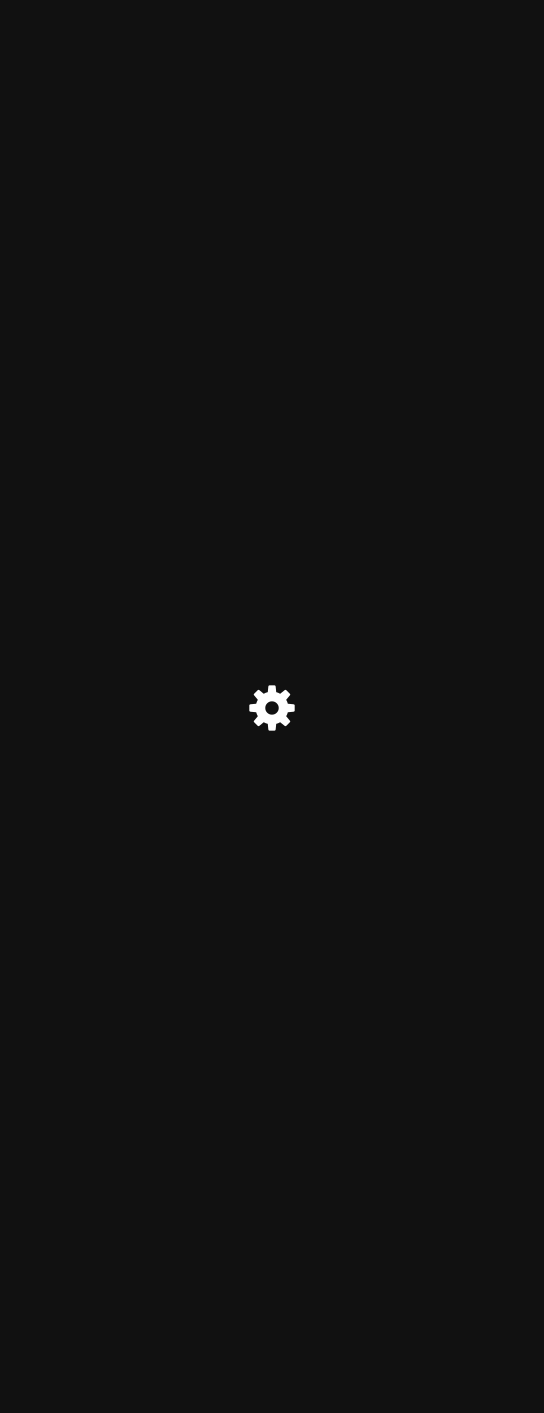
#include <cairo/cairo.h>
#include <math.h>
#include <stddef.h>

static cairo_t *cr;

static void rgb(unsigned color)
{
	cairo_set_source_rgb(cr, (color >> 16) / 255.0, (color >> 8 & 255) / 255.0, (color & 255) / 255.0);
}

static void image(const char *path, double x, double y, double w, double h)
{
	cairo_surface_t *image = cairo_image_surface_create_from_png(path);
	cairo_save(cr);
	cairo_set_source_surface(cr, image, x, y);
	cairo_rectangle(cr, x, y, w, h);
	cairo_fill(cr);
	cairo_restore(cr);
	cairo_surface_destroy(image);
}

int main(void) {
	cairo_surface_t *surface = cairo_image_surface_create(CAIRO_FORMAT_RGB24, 544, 1413);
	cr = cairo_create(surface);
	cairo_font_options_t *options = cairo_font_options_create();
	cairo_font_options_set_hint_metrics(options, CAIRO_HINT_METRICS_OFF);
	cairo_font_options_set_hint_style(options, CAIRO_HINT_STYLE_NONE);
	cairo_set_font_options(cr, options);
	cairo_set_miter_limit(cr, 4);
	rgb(0x111111);
	cairo_paint(cr);
	image("img/1.png", 249, 685, 46, 46);
	cairo_surface_write_to_png(surface, "page.png");
	cairo_font_options_destroy(options);
	cairo_destroy(cr);
	cairo_surface_destroy(surface);
	return 0;
}
